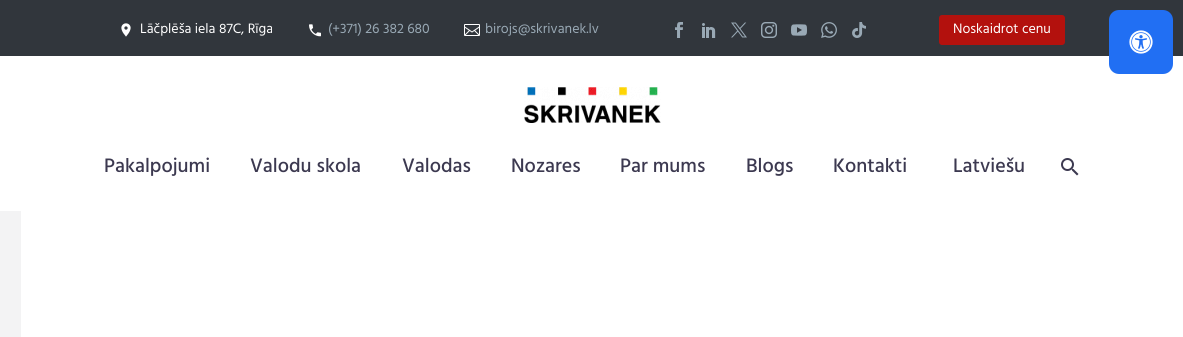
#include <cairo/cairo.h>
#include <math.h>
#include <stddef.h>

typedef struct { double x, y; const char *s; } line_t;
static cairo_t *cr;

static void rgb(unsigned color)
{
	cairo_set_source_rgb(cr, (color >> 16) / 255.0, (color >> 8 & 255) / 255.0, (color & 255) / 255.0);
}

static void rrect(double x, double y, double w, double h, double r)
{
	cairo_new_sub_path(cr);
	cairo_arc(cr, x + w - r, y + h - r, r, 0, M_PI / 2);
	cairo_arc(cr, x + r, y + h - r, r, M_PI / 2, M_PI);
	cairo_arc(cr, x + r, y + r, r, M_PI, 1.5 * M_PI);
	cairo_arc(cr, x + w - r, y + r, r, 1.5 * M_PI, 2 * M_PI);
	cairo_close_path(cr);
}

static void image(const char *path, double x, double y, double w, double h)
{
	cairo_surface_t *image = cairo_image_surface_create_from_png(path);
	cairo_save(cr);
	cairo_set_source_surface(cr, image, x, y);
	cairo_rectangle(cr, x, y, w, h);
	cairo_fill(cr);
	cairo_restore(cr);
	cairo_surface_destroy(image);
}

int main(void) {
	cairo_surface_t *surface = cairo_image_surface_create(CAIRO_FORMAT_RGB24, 1183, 337);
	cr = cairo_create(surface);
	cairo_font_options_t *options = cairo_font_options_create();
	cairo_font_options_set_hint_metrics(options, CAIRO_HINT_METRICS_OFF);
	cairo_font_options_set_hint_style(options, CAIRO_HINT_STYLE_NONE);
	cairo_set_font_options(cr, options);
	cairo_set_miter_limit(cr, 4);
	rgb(0xffffff);
	cairo_paint(cr);
	rgb(0x31363c);
	cairo_rectangle(cr, 0, 0, 1183, 56);
	cairo_fill(cr);
	image("img/1.png", 121, 23, 10, 14);
	image("img/2.png", 309, 24, 12, 13);
	image("img/3.png", 464, 24, 16, 12);
	image("img/4.png", 675, 22, 8, 16);
	image("img/5.png", 702, 23, 14, 15);
	image("img/6.png", 731, 22, 16, 16);
	image("img/7.png", 761, 22, 16, 16);
	image("img/8.png", 791, 24, 16, 12);
	image("img/9.png", 821, 22, 16, 16);
	image("img/10.png", 852, 22, 14, 16);
	rgb(0xb3110d);
	rrect(939, 15, 126, 30, 3);
	cairo_fill(cr);
	image("img/11.png", 524, 87, 137, 36);
	image("img/12.png", 1061, 158, 18, 18);
	rgb(0xf3f3f4);
	cairo_rectangle(cr, 0, 211, 21, 126);
	cairo_fill(cr);
	rgb(0x216ff3);
	rrect(1109, 10, 64, 64, 10);
	cairo_fill(cr);
	image("img/13.png", 1129, 30, 24, 24);
	cairo_select_font_face(cr, "Hind", CAIRO_FONT_SLANT_NORMAL, CAIRO_FONT_WEIGHT_NORMAL);
	cairo_set_font_size(cr, 14);
	rgb(0xffffff);
	cairo_move_to(cr, 140, 33);
	cairo_show_text(cr, "Lāčplēša iela 87C, Rīga");
	rgb(0x99a9b5);
	cairo_move_to(cr, 328, 33);
	cairo_show_text(cr, "(+371) 26 382 680");
	cairo_move_to(cr, 485, 33);
	cairo_show_text(cr, "birojs@skrivanek.lv");
	rgb(0xffffff);
	cairo_move_to(cr, 953, 33);
	cairo_show_text(cr, "Noskaidrot cenu");
	cairo_select_font_face(cr, "Hind Medium", CAIRO_FONT_SLANT_NORMAL, CAIRO_FONT_WEIGHT_NORMAL);
	cairo_set_font_size(cr, 20);
	rgb(0x3c3950);
	{
		static const line_t items[] = {
			{104, 172, "Pakalpojumi"},
			{250, 172, "Valodu skola"},
			{402, 172, "Valodas"},
			{511, 172, "Nozares"},
			{620, 172, "Par mums"},
			{746, 172, "Blogs"},
			{833, 172, "Kontakti"},
			{953, 172, "Latviešu"},
		};
		for (size_t i = 0; i < sizeof items / sizeof *items; i++) {
			cairo_move_to(cr, items[i].x, items[i].y);
			cairo_show_text(cr, items[i].s);
		}
	}
	cairo_surface_write_to_png(surface, "page.png");
	cairo_font_options_destroy(options);
	cairo_destroy(cr);
	cairo_surface_destroy(surface);
	return 0;
}
